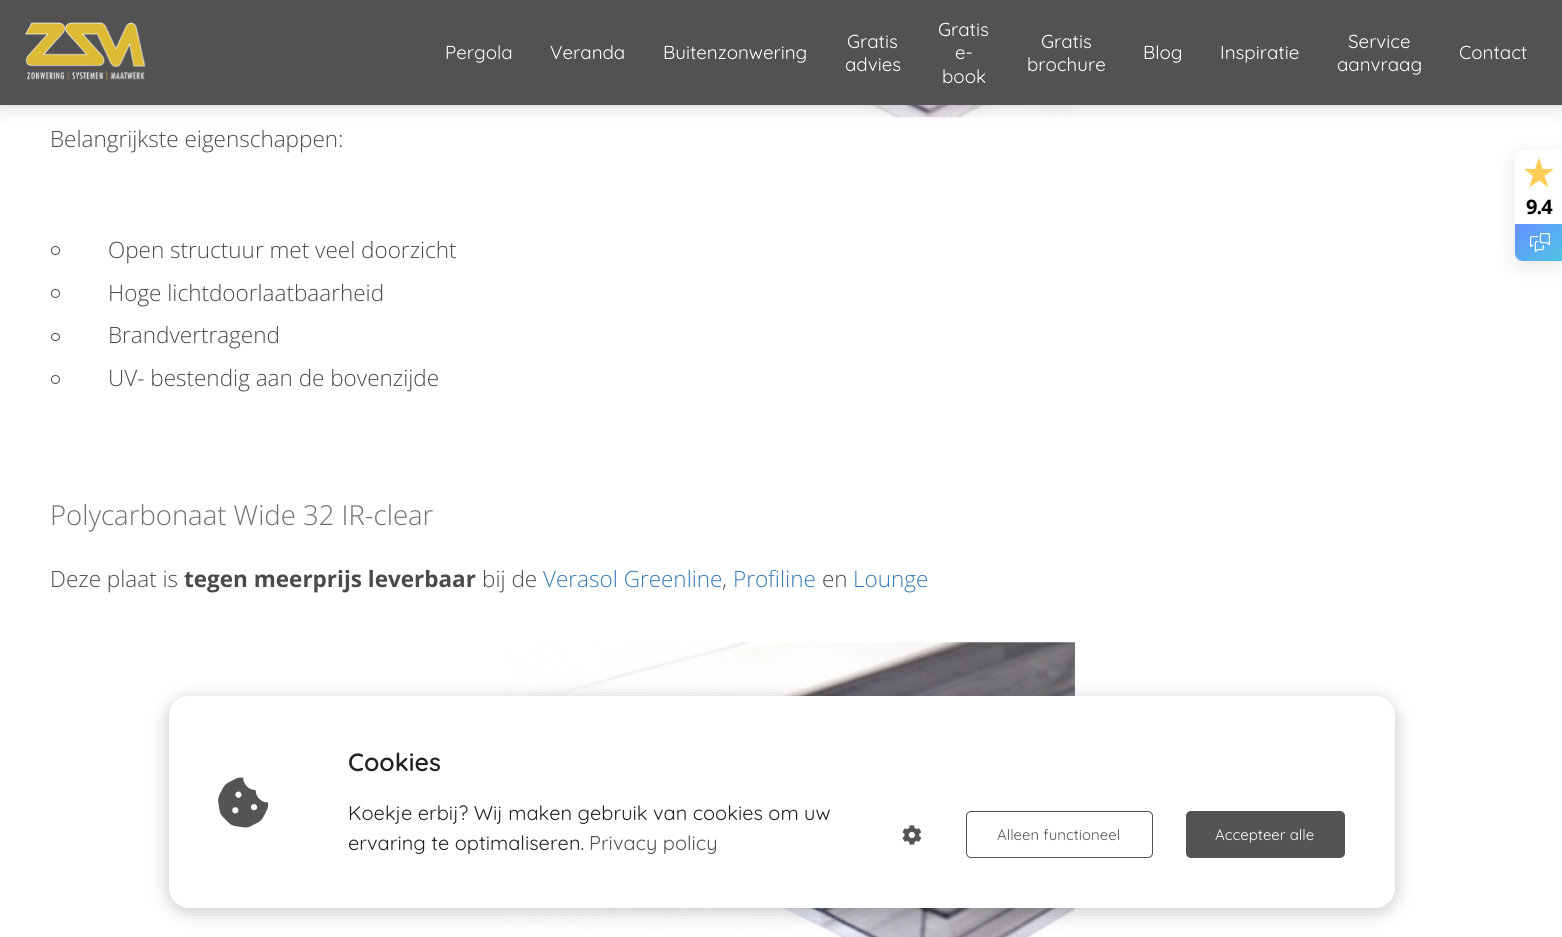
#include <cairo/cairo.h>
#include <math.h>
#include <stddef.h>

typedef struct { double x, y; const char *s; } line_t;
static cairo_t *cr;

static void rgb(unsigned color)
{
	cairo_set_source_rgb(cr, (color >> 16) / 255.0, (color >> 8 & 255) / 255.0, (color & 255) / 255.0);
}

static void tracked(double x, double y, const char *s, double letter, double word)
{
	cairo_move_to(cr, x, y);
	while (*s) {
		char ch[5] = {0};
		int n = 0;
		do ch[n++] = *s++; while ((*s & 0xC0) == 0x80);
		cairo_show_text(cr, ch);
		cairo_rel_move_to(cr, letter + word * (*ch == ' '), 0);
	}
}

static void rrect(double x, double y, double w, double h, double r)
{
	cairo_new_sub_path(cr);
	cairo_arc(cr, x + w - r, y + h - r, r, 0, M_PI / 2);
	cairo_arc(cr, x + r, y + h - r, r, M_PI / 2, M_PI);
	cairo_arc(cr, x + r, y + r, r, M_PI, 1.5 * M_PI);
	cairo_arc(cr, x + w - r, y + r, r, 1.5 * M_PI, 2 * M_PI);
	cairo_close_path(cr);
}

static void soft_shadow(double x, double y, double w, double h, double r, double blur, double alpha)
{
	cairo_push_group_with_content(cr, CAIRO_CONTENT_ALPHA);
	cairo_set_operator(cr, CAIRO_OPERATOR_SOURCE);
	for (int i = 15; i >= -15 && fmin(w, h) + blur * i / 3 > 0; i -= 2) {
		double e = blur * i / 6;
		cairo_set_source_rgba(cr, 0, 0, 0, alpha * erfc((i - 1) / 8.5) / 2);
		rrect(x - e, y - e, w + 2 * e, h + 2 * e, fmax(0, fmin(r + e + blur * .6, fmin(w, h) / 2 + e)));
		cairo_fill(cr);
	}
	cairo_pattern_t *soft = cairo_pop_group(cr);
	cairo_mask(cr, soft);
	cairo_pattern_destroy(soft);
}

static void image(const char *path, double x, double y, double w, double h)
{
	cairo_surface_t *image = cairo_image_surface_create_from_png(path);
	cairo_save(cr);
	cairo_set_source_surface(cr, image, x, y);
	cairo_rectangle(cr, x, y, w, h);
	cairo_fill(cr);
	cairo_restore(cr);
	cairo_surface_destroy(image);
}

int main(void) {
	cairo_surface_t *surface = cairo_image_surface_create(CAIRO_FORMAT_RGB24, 1562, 937);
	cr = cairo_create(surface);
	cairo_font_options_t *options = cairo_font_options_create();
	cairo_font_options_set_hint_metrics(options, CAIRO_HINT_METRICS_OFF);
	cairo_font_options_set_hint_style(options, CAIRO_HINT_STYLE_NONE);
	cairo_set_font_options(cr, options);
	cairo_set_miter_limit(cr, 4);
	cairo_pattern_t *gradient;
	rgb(0xffffff);
	cairo_paint(cr);
	image("img/2.png", 649, 105, 426, 13);
	rgb(0x000000);
	soft_shadow(0, 0, 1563, 105, 0, 9.5, 0.2);
	rgb(0x525252);
	cairo_rectangle(cr, 0, 0, 1562, 105);
	cairo_fill(cr);
	image("img/1.png", 25, 22, 121, 59);
	cairo_arc(cr, 55.5, 250.5, 4, 0, 2 * M_PI);
	rgb(0x4a4a4a);
	cairo_set_line_width(cr, 1);
	cairo_stroke(cr);
	cairo_arc(cr, 55.5, 293.5, 4, 0, 2 * M_PI);
	cairo_stroke(cr);
	rrect(51.5, 333.5, 8, 7, 3.5);
	cairo_stroke(cr);
	cairo_arc(cr, 55.5, 379.5, 4, 0, 2 * M_PI);
	cairo_stroke(cr);
	image("img/3.png", 504, 642, 571, 295);
	cairo_save(cr);
	cairo_set_fill_rule(cr, CAIRO_FILL_RULE_EVEN_ODD);
	cairo_new_path(cr);
	cairo_move_to(cr, 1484, 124);
	cairo_line_to(cr, 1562, 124);
	cairo_line_to(cr, 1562, 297);
	cairo_line_to(cr, 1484, 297);
	cairo_close_path(cr);
	cairo_move_to(cr, 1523, 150);
	cairo_line_to(cr, 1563, 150);
	cairo_line_to(cr, 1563, 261);
	cairo_line_to(cr, 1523, 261);
	cairo_curve_to(cr, 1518.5, 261, 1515, 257.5, 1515, 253);
	cairo_line_to(cr, 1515, 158);
	cairo_curve_to(cr, 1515, 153.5, 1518.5, 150, 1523, 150);
	cairo_close_path(cr);
	cairo_clip(cr);
	rgb(0x1e1e1e);
	soft_shadow(1515, 155, 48, 111, 8, 10, 0.12);
	cairo_restore(cr);
	rgb(0xfecd58);
	cairo_new_path(cr);
	cairo_move_to(cr, 1548.5, 187.5);
	cairo_line_to(cr, 1544.5, 176);
	cairo_line_to(cr, 1554, 169);
	cairo_line_to(cr, 1542.5, 169);
	cairo_line_to(cr, 1539, 157.5);
	cairo_line_to(cr, 1535, 169);
	cairo_line_to(cr, 1524, 169);
	cairo_line_to(cr, 1533, 176);
	cairo_line_to(cr, 1529, 187.5);
	cairo_line_to(cr, 1539, 180.5);
	cairo_close_path(cr);
	cairo_fill(cr);
	gradient = cairo_pattern_create_linear(1519, 220, 1559, 265);
	cairo_pattern_add_color_stop_rgba(gradient, 0, 0.396, 0.565, 1, 1);
	cairo_pattern_add_color_stop_rgba(gradient, 1, 0.306, 0.773, 0.894, 1);
	cairo_set_source(cr, gradient);
	cairo_pattern_destroy(gradient);
	cairo_new_path(cr);
	cairo_move_to(cr, 1515, 224);
	cairo_line_to(cr, 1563, 224);
	cairo_line_to(cr, 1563, 261);
	cairo_line_to(cr, 1523, 261);
	cairo_curve_to(cr, 1518.5, 261, 1515, 257.5, 1515, 253);
	cairo_close_path(cr);
	cairo_fill(cr);
	image("img/4.png", 1530, 233, 20, 19);
	rgb(0x000000);
	soft_shadow(169, 700, 1226, 211, 20, 9.5, 0.24);
	rgb(0xffffff);
	rrect(169, 696, 1226, 212, 20);
	cairo_fill(cr);
	image("img/5.png", 218, 777, 51, 51);
	image("img/6.png", 902, 825, 20, 20);
	rrect(966.5, 811.5, 186, 46, 4.5);
	rgb(0x545454);
	cairo_stroke(cr);
	rrect(1186, 811, 159, 47, 5);
	cairo_fill(cr);
	cairo_select_font_face(cr, "Quicksand", CAIRO_FONT_SLANT_NORMAL, CAIRO_FONT_WEIGHT_NORMAL);
	cairo_set_font_size(cr, 18.75);
	rgb(0xffffff);
	{
		static const line_t items[] = {
			{445, 59, "Pergola"},
			{550, 59, "Veranda"},
			{663, 59, "Buitenzonwering"},
			{847, 48, "Gratis"},
			{845, 71, "advies"},
			{938, 36, "Gratis"},
			{955, 59, "e-"},
			{942, 83, "book"},
			{1041, 48, "Gratis"},
			{1027, 71, "brochure"},
			{1143, 59, "Blog"},
			{1220, 59, "Inspiratie"},
			{1348, 48, "Service"},
			{1337, 71, "aanvraag"},
			{1459, 59, "Contact"},
		};
		for (size_t i = 0; i < sizeof items / sizeof *items; i++) {
			cairo_move_to(cr, items[i].x, items[i].y);
			cairo_show_text(cr, items[i].s);
		}
	}
	cairo_select_font_face(cr, "Open Sans Light", CAIRO_FONT_SLANT_NORMAL, CAIRO_FONT_WEIGHT_NORMAL);
	cairo_set_font_size(cr, 22.5);
	rgb(0x4a4a4a);
	{
		static const line_t items[] = {
			{50, 147, "Belangrijkste eigenschappen:"},
			{108, 258, "Open structuur met veel doorzicht"},
			{108, 301, "Hoge lichtdoorlaatbaarheid"},
			{108, 343, "Brandvertragend"},
			{108, 386, "UV- bestendig aan de bovenzijde"},
		};
		for (size_t i = 0; i < sizeof items / sizeof *items; i++) {
			cairo_move_to(cr, items[i].x, items[i].y);
			cairo_show_text(cr, items[i].s);
		}
	}
	cairo_set_font_size(cr, 27.5);
	rgb(0x717171);
	cairo_move_to(cr, 50, 525);
	cairo_show_text(cr, "Polycarbonaat Wide 32 IR-clear");
	cairo_set_font_size(cr, 22.5);
	rgb(0x4a4a4a);
	cairo_move_to(cr, 50, 587);
	cairo_show_text(cr, "Deze plaat is");
	cairo_select_font_face(cr, "Open Sans", CAIRO_FONT_SLANT_NORMAL, CAIRO_FONT_WEIGHT_BOLD);
	cairo_move_to(cr, 184, 587);
	cairo_show_text(cr, "tegen meerprijs leverbaar");
	cairo_select_font_face(cr, "Open Sans Light", CAIRO_FONT_SLANT_NORMAL, CAIRO_FONT_WEIGHT_NORMAL);
	cairo_move_to(cr, 482, 587);
	cairo_show_text(cr, "bij de");
	rgb(0x337ab7);
	cairo_move_to(cr, 543, 587);
	cairo_show_text(cr, "Verasol Greenline");
	rgb(0x4a4a4a);
	cairo_move_to(cr, 722, 587);
	cairo_show_text(cr, ",");
	rgb(0x337ab7);
	cairo_move_to(cr, 733, 587);
	cairo_show_text(cr, "Profiline");
	rgb(0x4a4a4a);
	cairo_move_to(cr, 822, 587);
	cairo_show_text(cr, "en");
	rgb(0x337ab7);
	cairo_move_to(cr, 853, 587);
	cairo_show_text(cr, "Lounge");
	cairo_select_font_face(cr, "Open Sans", CAIRO_FONT_SLANT_NORMAL, CAIRO_FONT_WEIGHT_BOLD);
	cairo_set_font_size(cr, 20);
	rgb(0x000000);
	tracked(1526, 214, "9.4", -1, 0);
	cairo_select_font_face(cr, "Quicksand SemiBold", CAIRO_FONT_SLANT_NORMAL, CAIRO_FONT_WEIGHT_NORMAL);
	cairo_set_font_size(cr, 25);
	rgb(0x222222);
	cairo_move_to(cr, 348, 771);
	cairo_show_text(cr, "Cookies");
	cairo_select_font_face(cr, "Quicksand", CAIRO_FONT_SLANT_NORMAL, CAIRO_FONT_WEIGHT_NORMAL);
	cairo_set_font_size(cr, 20);
	cairo_move_to(cr, 348, 820);
	cairo_show_text(cr, "Koekje erbij? Wij maken gebruik van cookies om uw");
	cairo_move_to(cr, 348, 850);
	cairo_show_text(cr, "ervaring te optimaliseren.");
	rgb(0x545454);
	cairo_move_to(cr, 589, 850);
	cairo_show_text(cr, "Privacy policy");
	cairo_set_font_size(cr, 15);
	cairo_move_to(cr, 997, 840);
	cairo_show_text(cr, "Alleen functioneel");
	rgb(0xffffff);
	cairo_move_to(cr, 1215, 840);
	cairo_show_text(cr, "Accepteer alle");
	cairo_surface_write_to_png(surface, "page.png");
	cairo_font_options_destroy(options);
	cairo_destroy(cr);
	cairo_surface_destroy(surface);
	return 0;
}
